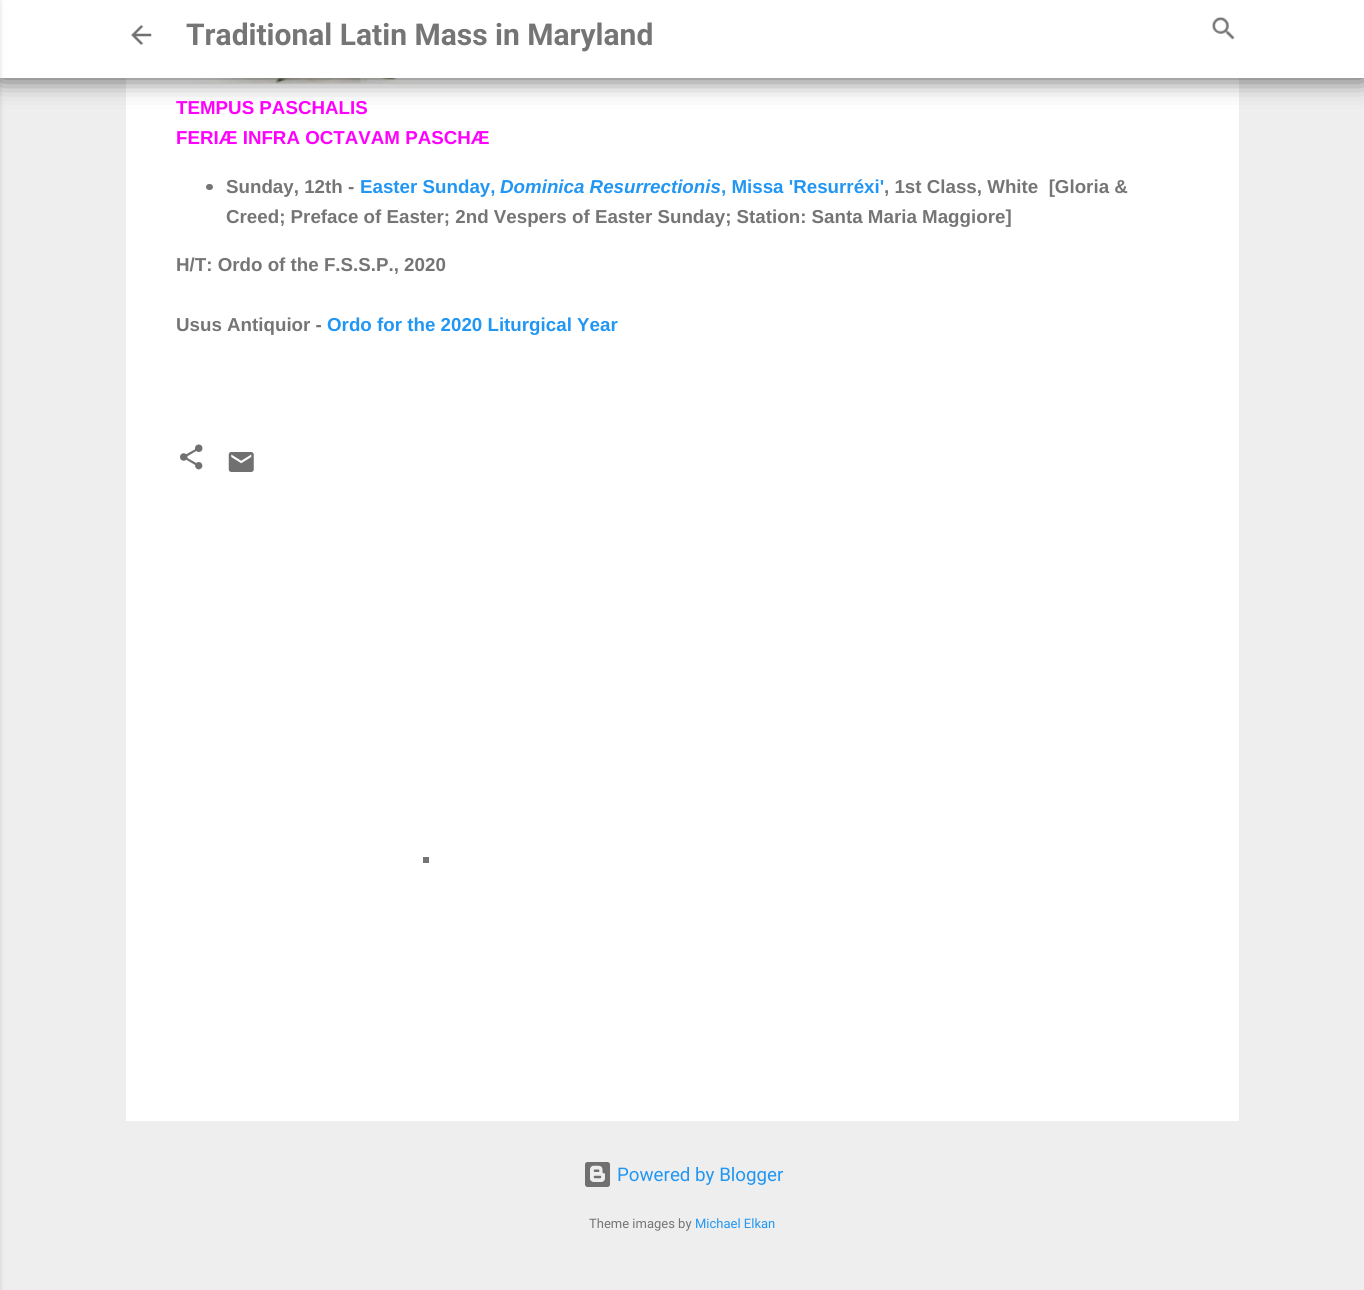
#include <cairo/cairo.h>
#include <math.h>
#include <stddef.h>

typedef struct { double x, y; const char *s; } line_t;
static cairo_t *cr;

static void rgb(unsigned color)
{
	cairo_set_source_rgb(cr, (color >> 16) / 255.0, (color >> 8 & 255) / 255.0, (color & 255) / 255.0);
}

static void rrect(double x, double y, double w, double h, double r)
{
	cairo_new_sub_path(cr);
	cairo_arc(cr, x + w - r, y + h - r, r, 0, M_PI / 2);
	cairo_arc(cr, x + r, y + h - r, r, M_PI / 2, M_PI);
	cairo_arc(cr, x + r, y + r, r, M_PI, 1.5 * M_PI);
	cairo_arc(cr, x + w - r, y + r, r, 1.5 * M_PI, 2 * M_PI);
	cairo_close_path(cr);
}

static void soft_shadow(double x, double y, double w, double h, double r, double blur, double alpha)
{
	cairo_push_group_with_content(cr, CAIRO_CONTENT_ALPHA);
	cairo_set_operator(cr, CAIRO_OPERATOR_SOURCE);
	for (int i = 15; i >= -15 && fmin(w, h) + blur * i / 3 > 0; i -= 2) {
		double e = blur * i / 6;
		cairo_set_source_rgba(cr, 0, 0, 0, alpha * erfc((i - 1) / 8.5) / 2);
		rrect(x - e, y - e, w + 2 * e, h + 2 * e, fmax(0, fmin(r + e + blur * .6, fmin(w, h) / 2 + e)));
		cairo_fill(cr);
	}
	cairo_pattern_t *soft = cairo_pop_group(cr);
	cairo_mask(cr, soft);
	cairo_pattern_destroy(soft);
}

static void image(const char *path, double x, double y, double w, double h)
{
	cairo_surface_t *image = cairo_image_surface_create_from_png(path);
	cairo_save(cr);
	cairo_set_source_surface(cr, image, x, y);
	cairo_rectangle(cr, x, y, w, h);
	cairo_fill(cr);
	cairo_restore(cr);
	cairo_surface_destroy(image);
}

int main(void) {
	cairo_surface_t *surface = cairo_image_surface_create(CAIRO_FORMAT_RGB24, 1364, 1290);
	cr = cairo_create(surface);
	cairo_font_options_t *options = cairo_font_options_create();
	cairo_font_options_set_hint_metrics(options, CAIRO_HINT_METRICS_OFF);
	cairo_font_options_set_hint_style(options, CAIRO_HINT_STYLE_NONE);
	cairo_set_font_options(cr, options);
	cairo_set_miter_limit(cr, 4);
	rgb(0xeeeeee);
	cairo_paint(cr);
	rgb(0xffffff);
	cairo_rectangle(cr, 126, 78, 1113, 1043);
	cairo_fill(cr);
	image("img/3.png", 186, 78, 238, 6);
	rgb(0x000000);
	soft_shadow(0, 0, 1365, 78, 0, 12.5, 0.7);
	rgb(0xffffff);
	cairo_rectangle(cr, 0, 0, 1364, 78);
	cairo_fill(cr);
	rgb(0x000000);
	soft_shadow(-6, 1, 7, 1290, 0, 2, 0.1);
	image("img/1.png", 131, 25, 21, 20);
	image("img/2.png", 1211, 16, 24, 24);
	rgb(0x757575);
	rrect(206, 184, 7, 6, 3);
	cairo_fill(cr);
	image("img/4.png", 180, 444, 23, 26);
	image("img/5.png", 228, 452, 26, 20);
	image("img/6.png", 585, 1162, 25, 25);
	cairo_rectangle(cr, 423, 857, 6, 6);
	cairo_fill(cr);
	cairo_select_font_face(cr, "Roboto", CAIRO_FONT_SLANT_NORMAL, CAIRO_FONT_WEIGHT_BOLD);
	cairo_set_font_size(cr, 30);
	cairo_move_to(cr, 186, 45);
	cairo_show_text(cr, "Traditional Latin Mass in Maryland");
	cairo_select_font_face(cr, "Liberation Sans", CAIRO_FONT_SLANT_NORMAL, CAIRO_FONT_WEIGHT_BOLD);
	cairo_set_font_size(cr, 18.75);
	rgb(0xff00ff);
	cairo_move_to(cr, 176, 114);
	cairo_show_text(cr, "TEMPUS PASCHALIS");
	cairo_move_to(cr, 176, 144);
	cairo_show_text(cr, "FERIÆ INFRA OCTAVAM PASCHÆ");
	rgb(0x757575);
	cairo_move_to(cr, 226, 193);
	cairo_show_text(cr, "Sunday, 12th -");
	rgb(0x2196f3);
	cairo_move_to(cr, 360, 193);
	cairo_show_text(cr, "Easter Sunday,");
	cairo_select_font_face(cr, "Liberation Sans", CAIRO_FONT_SLANT_ITALIC, CAIRO_FONT_WEIGHT_BOLD);
	cairo_move_to(cr, 500, 193);
	cairo_show_text(cr, "Dominica Resurrectionis");
	cairo_select_font_face(cr, "Liberation Sans", CAIRO_FONT_SLANT_NORMAL, CAIRO_FONT_WEIGHT_BOLD);
	cairo_move_to(cr, 721, 193);
	cairo_show_text(cr, ", Missa 'Resurréxi'");
	rgb(0x757575);
	{
		static const line_t items[] = {
			{884, 193, ", 1st Class, White  [Gloria &"},
			{226, 223, "Creed; Preface of Easter; 2nd Vespers of Easter Sunday; Station: Santa Maria Maggiore]"},
			{176, 271, "H/T: Ordo of the F.S.S.P., 2020"},
			{176, 331, "Usus Antiquior -"},
		};
		for (size_t i = 0; i < sizeof items / sizeof *items; i++) {
			cairo_move_to(cr, items[i].x, items[i].y);
			cairo_show_text(cr, items[i].s);
		}
	}
	rgb(0x2196f3);
	cairo_move_to(cr, 327, 331);
	cairo_show_text(cr, "Ordo for the 2020 Liturgical Year");
	cairo_select_font_face(cr, "Roboto", CAIRO_FONT_SLANT_NORMAL, CAIRO_FONT_WEIGHT_NORMAL);
	cairo_move_to(cr, 617, 1181);
	cairo_show_text(cr, "Powered by Blogger");
	cairo_set_font_size(cr, 13);
	rgb(0x757575);
	cairo_move_to(cr, 589, 1228);
	cairo_show_text(cr, "Theme images by");
	rgb(0x2196f3);
	cairo_move_to(cr, 695, 1228);
	cairo_show_text(cr, "Michael Elkan");
	cairo_surface_write_to_png(surface, "page.png");
	cairo_font_options_destroy(options);
	cairo_destroy(cr);
	cairo_surface_destroy(surface);
	return 0;
}
